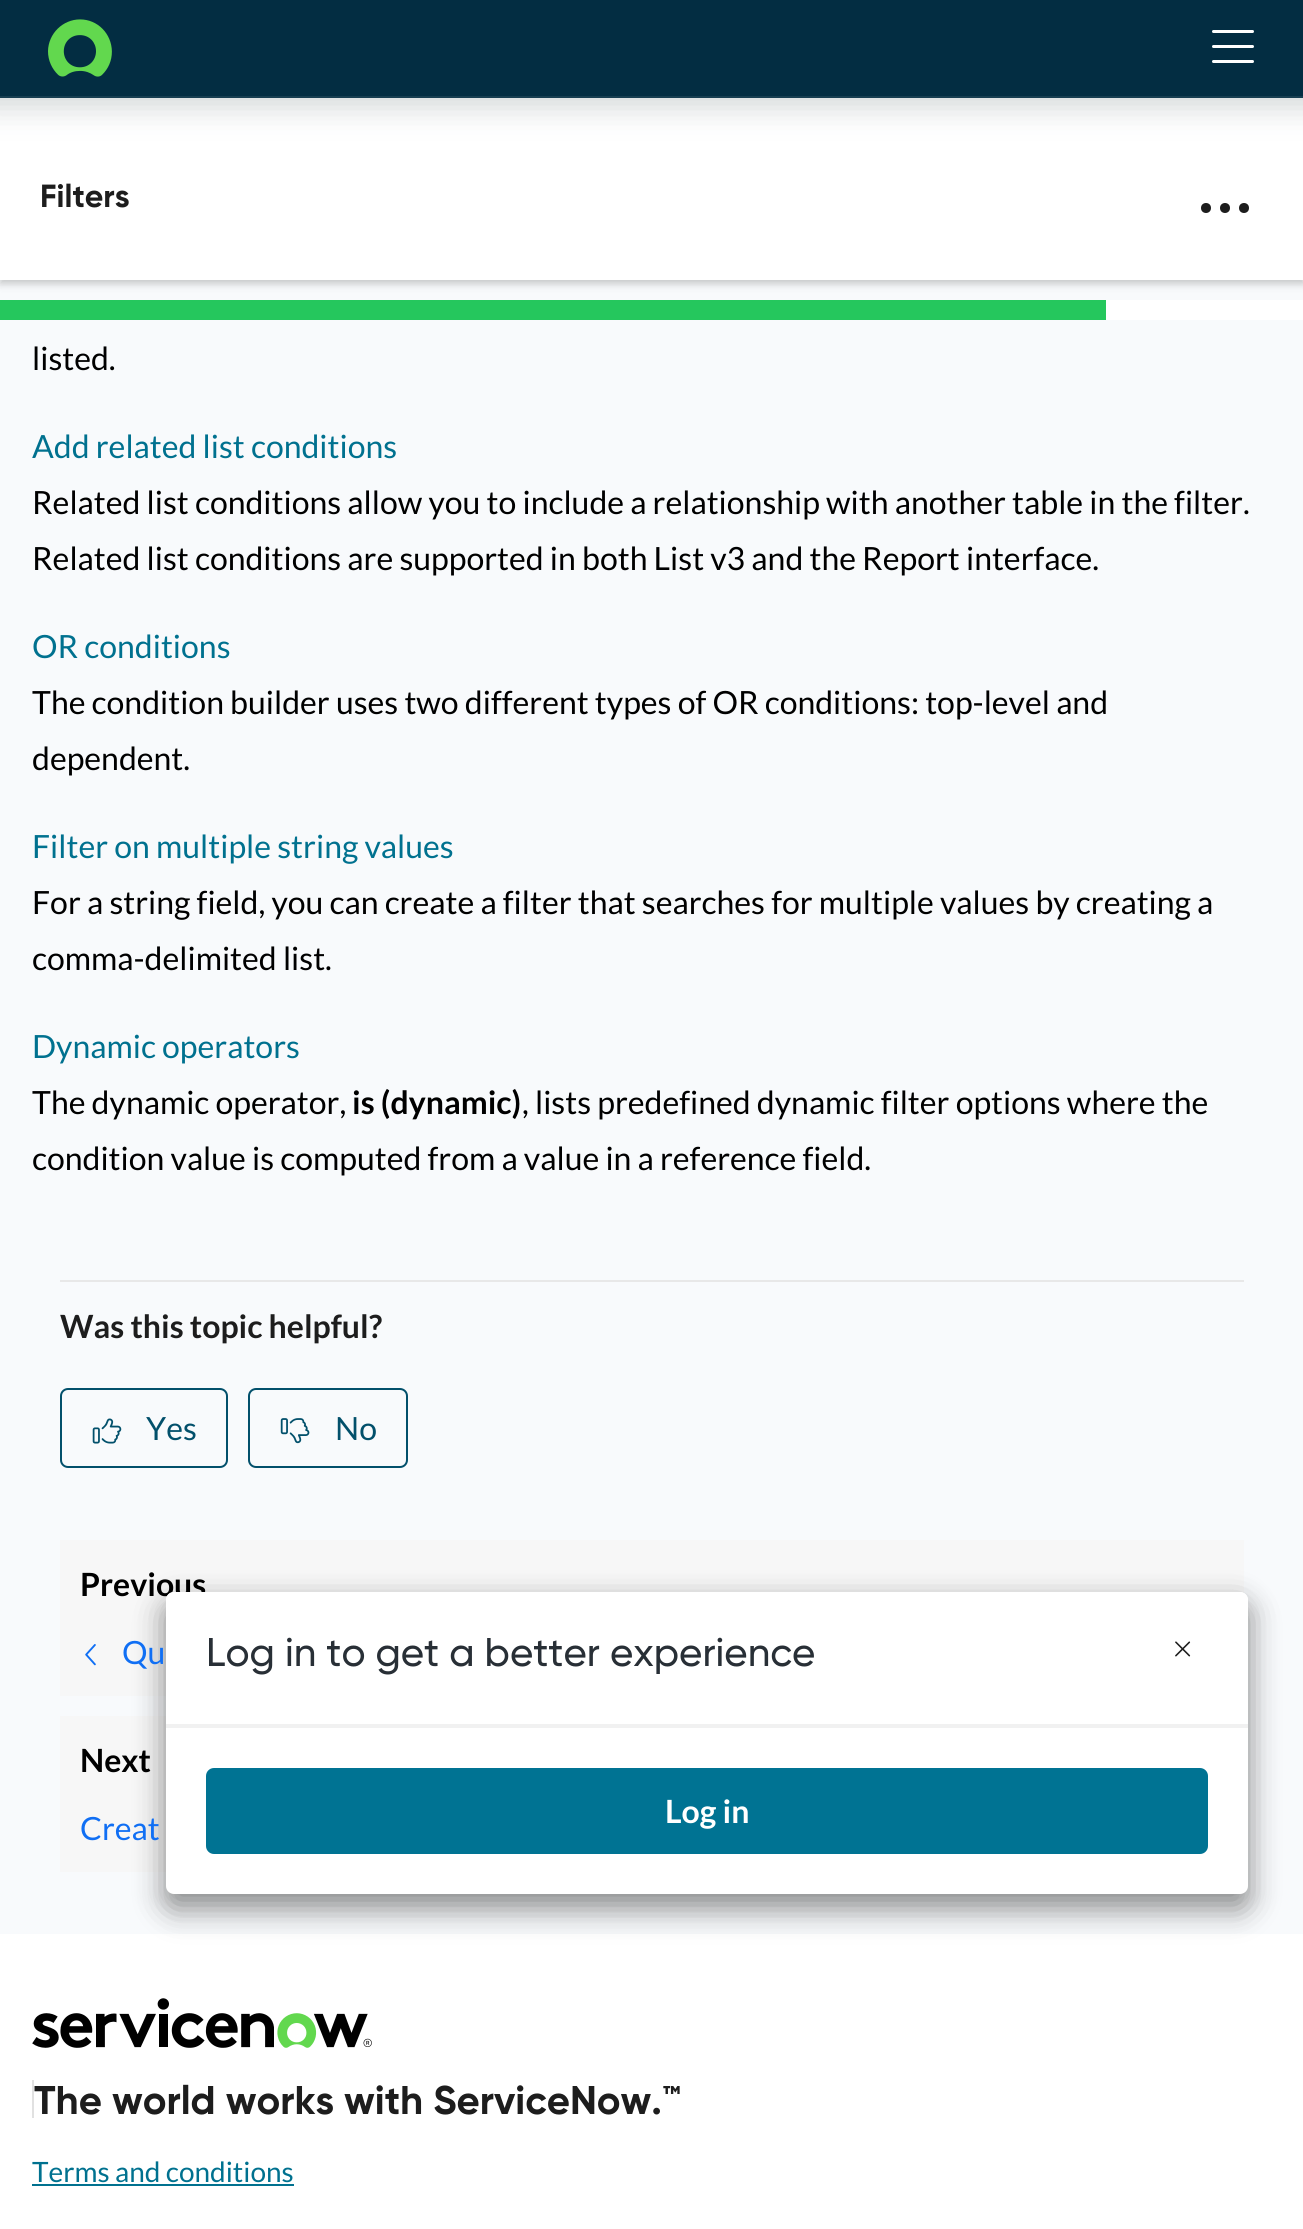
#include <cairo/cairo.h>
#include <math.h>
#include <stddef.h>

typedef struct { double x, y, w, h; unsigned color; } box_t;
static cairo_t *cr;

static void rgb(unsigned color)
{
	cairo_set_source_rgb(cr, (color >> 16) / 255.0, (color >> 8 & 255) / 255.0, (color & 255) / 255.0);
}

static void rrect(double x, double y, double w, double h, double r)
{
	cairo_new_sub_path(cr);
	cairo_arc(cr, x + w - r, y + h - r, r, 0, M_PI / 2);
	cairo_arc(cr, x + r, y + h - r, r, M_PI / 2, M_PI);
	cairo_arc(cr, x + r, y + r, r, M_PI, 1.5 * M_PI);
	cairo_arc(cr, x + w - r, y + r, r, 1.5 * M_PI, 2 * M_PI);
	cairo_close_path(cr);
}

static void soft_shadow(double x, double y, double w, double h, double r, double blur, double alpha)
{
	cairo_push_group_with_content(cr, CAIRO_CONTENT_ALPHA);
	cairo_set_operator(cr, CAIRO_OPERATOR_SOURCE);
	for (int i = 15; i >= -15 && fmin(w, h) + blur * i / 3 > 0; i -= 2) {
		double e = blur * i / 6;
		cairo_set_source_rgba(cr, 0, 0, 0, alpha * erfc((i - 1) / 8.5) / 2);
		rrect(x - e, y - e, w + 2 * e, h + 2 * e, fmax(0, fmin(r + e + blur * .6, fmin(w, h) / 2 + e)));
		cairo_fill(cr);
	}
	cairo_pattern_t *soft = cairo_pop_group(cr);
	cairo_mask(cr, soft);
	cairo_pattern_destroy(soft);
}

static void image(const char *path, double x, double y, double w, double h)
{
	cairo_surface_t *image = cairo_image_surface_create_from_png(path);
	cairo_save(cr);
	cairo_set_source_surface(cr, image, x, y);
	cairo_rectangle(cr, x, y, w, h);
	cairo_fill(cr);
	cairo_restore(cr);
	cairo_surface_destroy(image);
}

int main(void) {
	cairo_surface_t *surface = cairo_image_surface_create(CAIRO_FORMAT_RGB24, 1303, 2229);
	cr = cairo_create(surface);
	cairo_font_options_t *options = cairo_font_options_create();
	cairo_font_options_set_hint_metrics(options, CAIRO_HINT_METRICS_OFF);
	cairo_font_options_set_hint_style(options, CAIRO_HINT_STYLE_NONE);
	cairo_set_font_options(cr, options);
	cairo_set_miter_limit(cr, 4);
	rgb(0xffffff);
	cairo_paint(cr);
	rgb(0xf8fafc);
	cairo_rectangle(cr, 0, 280, 1303, 1654);
	cairo_fill(cr);
	rgb(0x000000);
	soft_shadow(0, 124, 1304, 160, 0, 4, 0.2);
	rgb(0xffffff);
	cairo_rectangle(cr, 0, 117, 1303, 163);
	cairo_fill(cr);
	rgb(0x293e40);
	soft_shadow(-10, -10, 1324, 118, 0, 15, 0.2);
	rgb(0x032d42);
	cairo_rectangle(cr, 0, 0, 1303, 96);
	cairo_fill(cr);
	rgb(0x173e51);
	cairo_rectangle(cr, 0, 96, 1303, 2);
	cairo_fill(cr);
	image("img/1.png", 48, 19, 64, 58);
	image("img/2.png", 1212, 30, 42, 33);
	rgb(0x1d1d1d);
	cairo_arc(cr, 1206, 208, 5, 0, 2 * M_PI);
	cairo_fill(cr);
	cairo_arc(cr, 1225, 208, 5, 0, 2 * M_PI);
	cairo_fill(cr);
	cairo_arc(cr, 1244, 208, 5, 0, 2 * M_PI);
	cairo_fill(cr);
	{
		static const box_t items[] = {
			{0, 300, 1106, 20, 0x25c75d},
			{1106, 300, 197, 20, 0xffffff},
			{60, 1280, 1184, 2, 0xe8e8e8},
		};
		for (size_t i = 0; i < sizeof items / sizeof *items; i++) {
			rgb(items[i].color);
			cairo_rectangle(cr, items[i].x, items[i].y, items[i].w, items[i].h);
			cairo_fill(cr);
		}
	}
	rrect(61, 1389, 166, 78, 7);
	rgb(0x02506b);
	cairo_stroke(cr);
	image("img/3.png", 92, 1418, 30, 26);
	rrect(249, 1389, 158, 78, 7);
	cairo_stroke(cr);
	image("img/4.png", 280, 1418, 30, 26);
	rgb(0xf7f7f7);
	cairo_rectangle(cr, 60, 1540, 1184, 156);
	cairo_fill(cr);
	image("img/5.png", 85, 1644, 11, 22);
	cairo_rectangle(cr, 60, 1716, 106, 156);
	cairo_fill(cr);
	rgb(0x000000);
	soft_shadow(166, 1602, 1082, 302, 8, 15, 0.25);
	soft_shadow(166, 1608, 1082, 302, 8, 16, 0.27);
	image("img/7.png", 32, 1998, 340, 50);
	rgb(0xe1e1e1);
	cairo_rectangle(cr, 32, 2080, 2, 38);
	cairo_fill(cr);
	rgb(0x00718f);
	cairo_rectangle(cr, 32, 2184, 262, 2);
	cairo_fill(cr);
	cairo_select_font_face(cr, "Gilroy", CAIRO_FONT_SLANT_NORMAL, CAIRO_FONT_WEIGHT_BOLD);
	cairo_set_font_size(cr, 32);
	rgb(0x1d1d1d);
	cairo_move_to(cr, 40, 207);
	cairo_show_text(cr, "Filters");
	cairo_select_font_face(cr, "Lato", CAIRO_FONT_SLANT_NORMAL, CAIRO_FONT_WEIGHT_NORMAL);
	rgb(0x000000);
	cairo_move_to(cr, 32, 370);
	cairo_show_text(cr, "listed.");
	rgb(0x00718f);
	cairo_move_to(cr, 32, 458);
	cairo_show_text(cr, "Add related list conditions");
	rgb(0x000000);
	cairo_move_to(cr, 32, 514);
	cairo_show_text(cr, "Related list conditions allow you to include a relationship with another table in the filter.");
	cairo_move_to(cr, 32, 570);
	cairo_show_text(cr, "Related list conditions are supported in both List v3 and the Report interface.");
	rgb(0x00718f);
	cairo_move_to(cr, 32, 658);
	cairo_show_text(cr, "OR conditions");
	rgb(0x000000);
	cairo_move_to(cr, 32, 714);
	cairo_show_text(cr, "The condition builder uses two different types of OR conditions: top-level and");
	cairo_move_to(cr, 32, 770);
	cairo_show_text(cr, "dependent.");
	rgb(0x00718f);
	cairo_move_to(cr, 32, 858);
	cairo_show_text(cr, "Filter on multiple string values");
	rgb(0x000000);
	cairo_move_to(cr, 32, 914);
	cairo_show_text(cr, "For a string field, you can create a filter that searches for multiple values by creating a");
	cairo_move_to(cr, 32, 970);
	cairo_show_text(cr, "comma-delimited list.");
	rgb(0x00718f);
	cairo_move_to(cr, 32, 1058);
	cairo_show_text(cr, "Dynamic operators");
	rgb(0x000000);
	cairo_move_to(cr, 32, 1114);
	cairo_show_text(cr, "The dynamic operator,");
	cairo_select_font_face(cr, "Lato", CAIRO_FONT_SLANT_NORMAL, CAIRO_FONT_WEIGHT_BOLD);
	cairo_move_to(cr, 352, 1114);
	cairo_show_text(cr, "is (dynamic)");
	cairo_select_font_face(cr, "Lato", CAIRO_FONT_SLANT_NORMAL, CAIRO_FONT_WEIGHT_NORMAL);
	cairo_move_to(cr, 522, 1114);
	cairo_show_text(cr, ", lists predefined dynamic filter options where the");
	cairo_move_to(cr, 32, 1170);
	cairo_show_text(cr, "condition value is computed from a value in a reference field.");
	cairo_select_font_face(cr, "Lato", CAIRO_FONT_SLANT_NORMAL, CAIRO_FONT_WEIGHT_BOLD);
	rgb(0x1d1d1d);
	cairo_move_to(cr, 60, 1338);
	cairo_show_text(cr, "Was this topic helpful?");
	cairo_select_font_face(cr, "Lato", CAIRO_FONT_SLANT_NORMAL, CAIRO_FONT_WEIGHT_NORMAL);
	rgb(0x02506b);
	cairo_move_to(cr, 146, 1440);
	cairo_show_text(cr, "Yes");
	cairo_move_to(cr, 335, 1440);
	cairo_show_text(cr, "No");
	cairo_select_font_face(cr, "Lato", CAIRO_FONT_SLANT_NORMAL, CAIRO_FONT_WEIGHT_BOLD);
	rgb(0x000000);
	cairo_move_to(cr, 80, 1596);
	cairo_show_text(cr, "Previous");
	cairo_select_font_face(cr, "Lato", CAIRO_FONT_SLANT_NORMAL, CAIRO_FONT_WEIGHT_NORMAL);
	rgb(0x106ff4);
	cairo_move_to(cr, 122, 1664);
	cairo_show_text(cr, "Qu");
	cairo_select_font_face(cr, "Lato", CAIRO_FONT_SLANT_NORMAL, CAIRO_FONT_WEIGHT_BOLD);
	rgb(0x000000);
	cairo_move_to(cr, 80, 1772);
	cairo_show_text(cr, "Next");
	cairo_select_font_face(cr, "Lato", CAIRO_FONT_SLANT_NORMAL, CAIRO_FONT_WEIGHT_NORMAL);
	rgb(0x106ff4);
	cairo_move_to(cr, 80, 1840);
	cairo_show_text(cr, "Creat");
	rgb(0xffffff);
	rrect(166, 1592, 1082, 302, 8);
	cairo_fill(cr);
	cairo_new_path(cr);
	cairo_move_to(cr, 174, 1592);
	cairo_line_to(cr, 1240, 1592);
	cairo_curve_to(cr, 1244.5, 1592, 1248, 1595.5, 1248, 1600);
	cairo_line_to(cr, 1248, 1726);
	cairo_line_to(cr, 166, 1726);
	cairo_line_to(cr, 166, 1600);
	cairo_curve_to(cr, 166, 1595.5, 169.5, 1592, 174, 1592);
	cairo_close_path(cr);
	cairo_fill(cr);
	rgb(0xf1f1f1);
	cairo_rectangle(cr, 166, 1724, 1082, 4);
	cairo_fill(cr);
	cairo_select_font_face(cr, "Gilroy Medium", CAIRO_FONT_SLANT_NORMAL, CAIRO_FONT_WEIGHT_NORMAL);
	cairo_set_font_size(cr, 40);
	rgb(0x282f36);
	cairo_move_to(cr, 206, 1666);
	cairo_show_text(cr, "Log in to get a better experience");
	image("img/6.png", 1175, 1641, 16, 16);
	rgb(0x007393);
	rrect(206, 1768, 1002, 86, 8);
	cairo_fill(cr);
	cairo_select_font_face(cr, "Lato", CAIRO_FONT_SLANT_NORMAL, CAIRO_FONT_WEIGHT_BOLD);
	cairo_set_font_size(cr, 32);
	rgb(0xffffff);
	cairo_move_to(cr, 665, 1823);
	cairo_show_text(cr, "Log in");
	cairo_select_font_face(cr, "Gilroy", CAIRO_FONT_SLANT_NORMAL, CAIRO_FONT_WEIGHT_BOLD);
	cairo_set_font_size(cr, 40);
	rgb(0x1d1d1d);
	cairo_move_to(cr, 34, 2114);
	cairo_show_text(cr, "The world works with ServiceNow.™");
	cairo_select_font_face(cr, "Lato", CAIRO_FONT_SLANT_NORMAL, CAIRO_FONT_WEIGHT_NORMAL);
	cairo_set_font_size(cr, 28);
	rgb(0x00718f);
	cairo_move_to(cr, 32, 2182);
	cairo_show_text(cr, "Terms and conditions");
	cairo_surface_write_to_png(surface, "page.png");
	cairo_font_options_destroy(options);
	cairo_destroy(cr);
	cairo_surface_destroy(surface);
	return 0;
}
